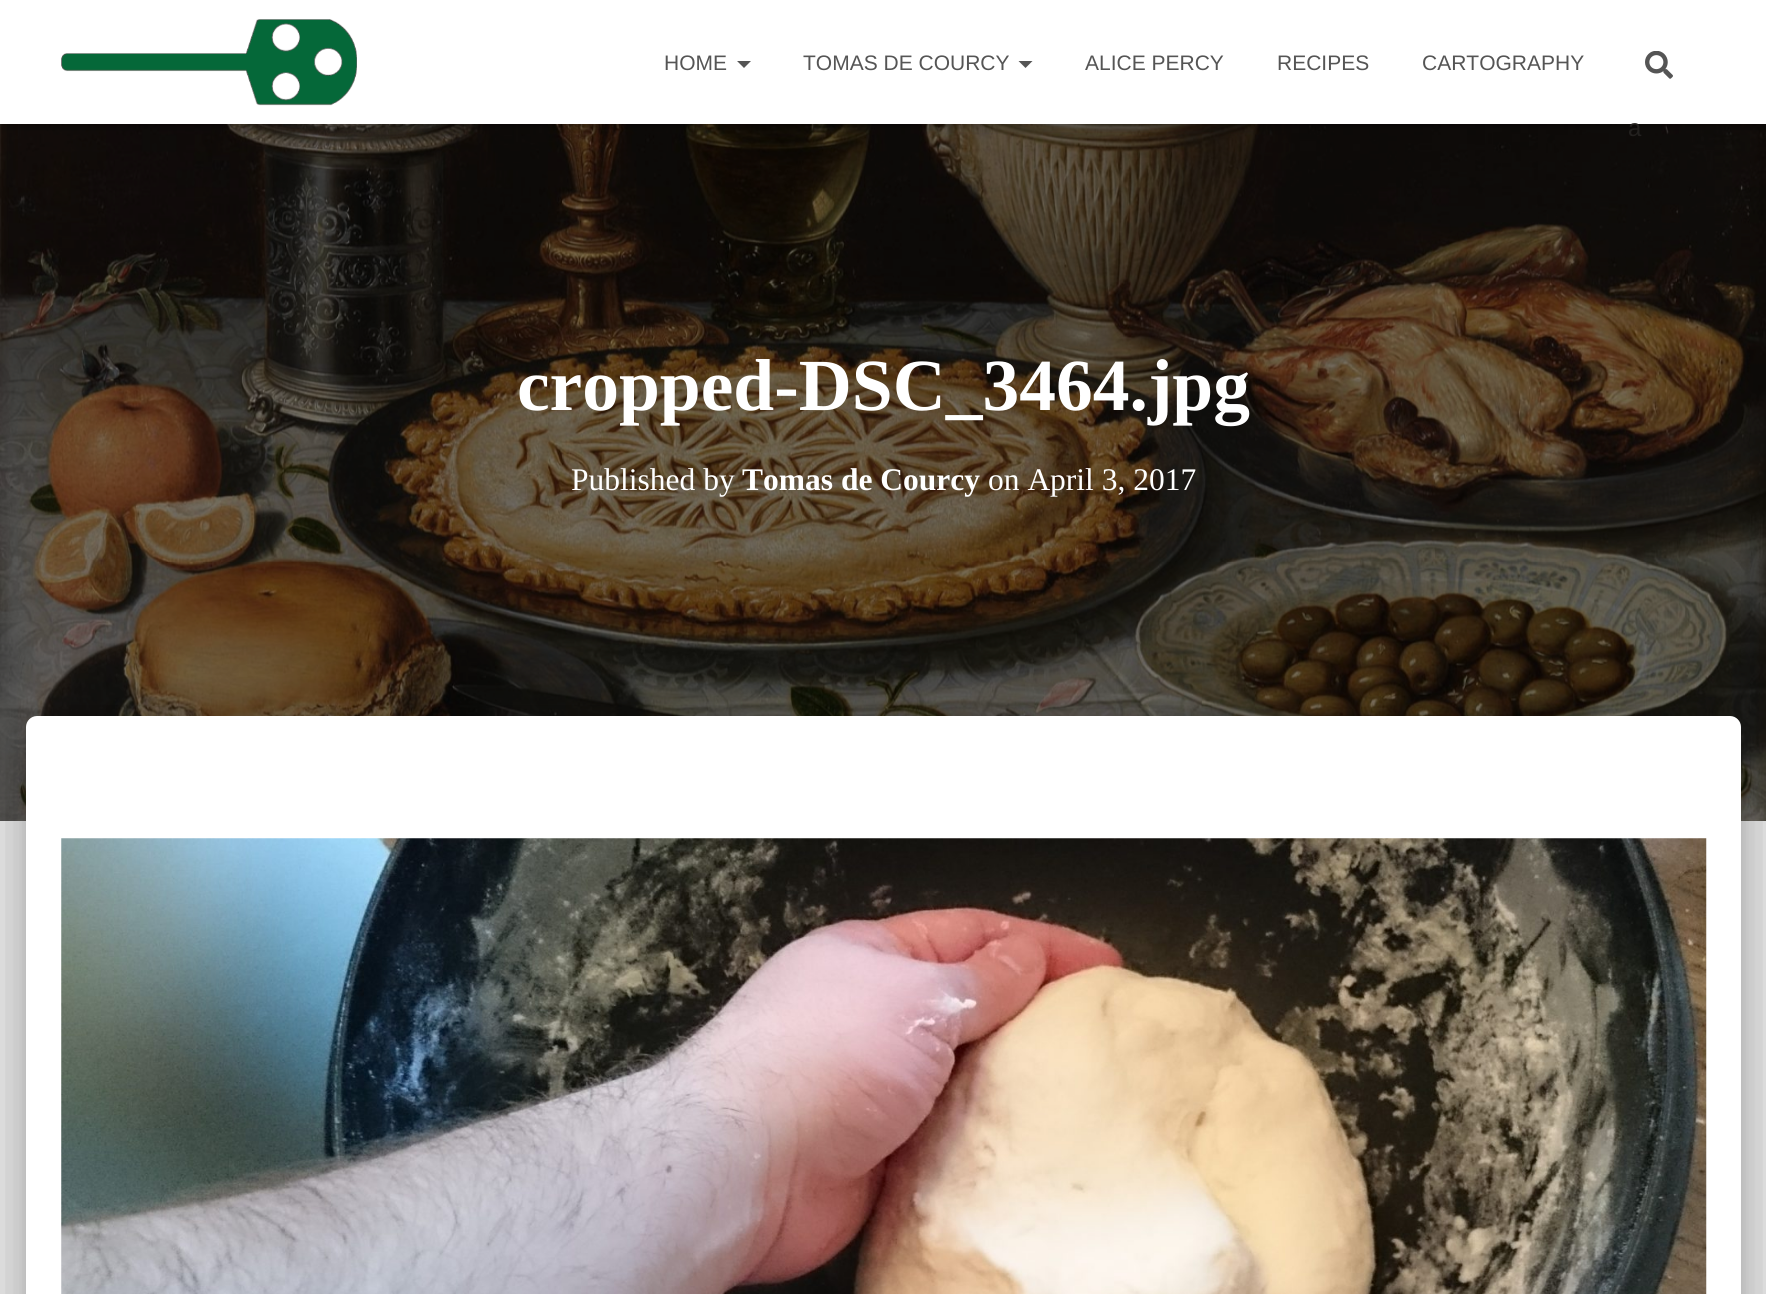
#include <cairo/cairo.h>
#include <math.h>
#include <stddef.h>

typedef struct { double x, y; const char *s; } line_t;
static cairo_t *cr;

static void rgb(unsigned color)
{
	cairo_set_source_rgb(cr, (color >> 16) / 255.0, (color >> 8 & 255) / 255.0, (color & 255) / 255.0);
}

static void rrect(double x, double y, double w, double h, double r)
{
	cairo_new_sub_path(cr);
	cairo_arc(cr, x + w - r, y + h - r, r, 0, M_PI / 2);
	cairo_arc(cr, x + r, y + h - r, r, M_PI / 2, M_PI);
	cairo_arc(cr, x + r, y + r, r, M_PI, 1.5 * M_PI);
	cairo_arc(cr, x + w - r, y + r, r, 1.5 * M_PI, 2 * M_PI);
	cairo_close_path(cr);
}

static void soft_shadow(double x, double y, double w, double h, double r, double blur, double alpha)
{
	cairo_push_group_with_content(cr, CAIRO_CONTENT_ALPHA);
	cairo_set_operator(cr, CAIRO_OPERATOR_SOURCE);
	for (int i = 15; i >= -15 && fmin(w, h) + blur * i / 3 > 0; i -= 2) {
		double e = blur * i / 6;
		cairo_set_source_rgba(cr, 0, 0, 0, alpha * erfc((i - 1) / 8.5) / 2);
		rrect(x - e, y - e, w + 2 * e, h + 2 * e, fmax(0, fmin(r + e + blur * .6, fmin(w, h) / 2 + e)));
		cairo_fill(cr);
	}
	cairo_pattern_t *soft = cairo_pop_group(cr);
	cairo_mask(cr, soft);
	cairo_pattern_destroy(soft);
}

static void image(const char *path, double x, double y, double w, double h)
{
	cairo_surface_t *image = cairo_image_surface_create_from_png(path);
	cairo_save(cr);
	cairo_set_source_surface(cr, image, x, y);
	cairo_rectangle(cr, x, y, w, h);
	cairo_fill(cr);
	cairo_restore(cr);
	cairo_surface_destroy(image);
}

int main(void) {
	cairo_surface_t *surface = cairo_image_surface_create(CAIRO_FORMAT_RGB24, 1766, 1294);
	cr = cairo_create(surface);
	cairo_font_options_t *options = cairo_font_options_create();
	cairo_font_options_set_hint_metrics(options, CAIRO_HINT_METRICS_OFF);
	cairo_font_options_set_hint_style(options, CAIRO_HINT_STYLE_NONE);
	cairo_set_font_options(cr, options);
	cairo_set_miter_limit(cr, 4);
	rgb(0xe5e5e5);
	cairo_paint(cr);
	image("img/3.png", 0, 124, 1766, 697);
	rgb(0x000000);
	soft_shadow(4, 11, 1760, 117, 0, 4.5, 0.1);
	soft_shadow(0, 2, 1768, 124, 0, 9, 0.12);
	soft_shadow(11, 12, 1746, 104, 0, 9, 0.42);
	rgb(0xffffff);
	cairo_rectangle(cr, 0, 0, 1766, 124);
	cairo_fill(cr);
	image("img/1.png", 61, 19, 296, 87);
	rgb(0x555555);
	cairo_new_path(cr);
	cairo_move_to(cr, 737, 61);
	cairo_line_to(cr, 751, 61);
	cairo_line_to(cr, 744, 68);
	cairo_close_path(cr);
	cairo_fill(cr);
	cairo_new_path(cr);
	cairo_move_to(cr, 1018.5, 61);
	cairo_line_to(cr, 1032.5, 61);
	cairo_line_to(cr, 1025.5, 68);
	cairo_close_path(cr);
	cairo_fill(cr);
	image("img/2.png", 1645, 51, 28, 28);
	rgb(0x000000);
	soft_shadow(35, 739, 1698, 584, 2, 9, 0.2);
	soft_shadow(18, 718, 1732, 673, 19, 26, 0.12);
	soft_shadow(23, 740, 1722, 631, 14, 21, 0.14);
	rgb(0xffffff);
	cairo_new_path(cr);
	cairo_move_to(cr, 37, 716);
	cairo_line_to(cr, 1730, 716);
	cairo_curve_to(cr, 1736, 716, 1741, 721, 1741, 727);
	cairo_line_to(cr, 1741, 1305);
	cairo_line_to(cr, 26, 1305);
	cairo_line_to(cr, 26, 727);
	cairo_curve_to(cr, 26, 721, 31, 716, 37, 716);
	cairo_close_path(cr);
	cairo_fill(cr);
	image("img/4.png", 61, 838, 1646, 456);
	cairo_select_font_face(cr, "Liberation Sans", CAIRO_FONT_SLANT_NORMAL, CAIRO_FONT_WEIGHT_NORMAL);
	cairo_set_font_size(cr, 21);
	rgb(0x555555);
	{
		static const line_t items[] = {
			{664, 70, "HOME"},
			{803, 70, "TOMAS DE COURCY"},
			{1085, 70, "ALICE PERCY"},
			{1277, 70, "RECIPES"},
			{1422, 70, "CARTOGRAPHY"},
		};
		for (size_t i = 0; i < sizeof items / sizeof *items; i++) {
			cairo_move_to(cr, items[i].x, items[i].y);
			cairo_show_text(cr, items[i].s);
		}
	}
	cairo_set_font_size(cr, 24);
	rgb(0x23211f);
	cairo_move_to(cr, 1628, 136);
	cairo_show_text(cr, "a");
	cairo_select_font_face(cr, "Liberation Serif", CAIRO_FONT_SLANT_NORMAL, CAIRO_FONT_WEIGHT_BOLD);
	cairo_set_font_size(cr, 73.5);
	rgb(0xffffff);
	cairo_move_to(cr, 517, 410);
	cairo_show_text(cr, "cropped-DSC_3464.jpg");
	cairo_select_font_face(cr, "Liberation Serif", CAIRO_FONT_SLANT_NORMAL, CAIRO_FONT_WEIGHT_NORMAL);
	cairo_set_font_size(cr, 31.5);
	cairo_move_to(cr, 571, 490);
	cairo_show_text(cr, "Published by");
	cairo_select_font_face(cr, "Liberation Serif", CAIRO_FONT_SLANT_NORMAL, CAIRO_FONT_WEIGHT_BOLD);
	cairo_move_to(cr, 742, 490);
	cairo_show_text(cr, "Tomas de Courcy");
	cairo_select_font_face(cr, "Liberation Serif", CAIRO_FONT_SLANT_NORMAL, CAIRO_FONT_WEIGHT_NORMAL);
	cairo_move_to(cr, 988, 490);
	cairo_show_text(cr, "on April 3, 2017");
	cairo_surface_write_to_png(surface, "page.png");
	cairo_font_options_destroy(options);
	cairo_destroy(cr);
	cairo_surface_destroy(surface);
	return 0;
}
